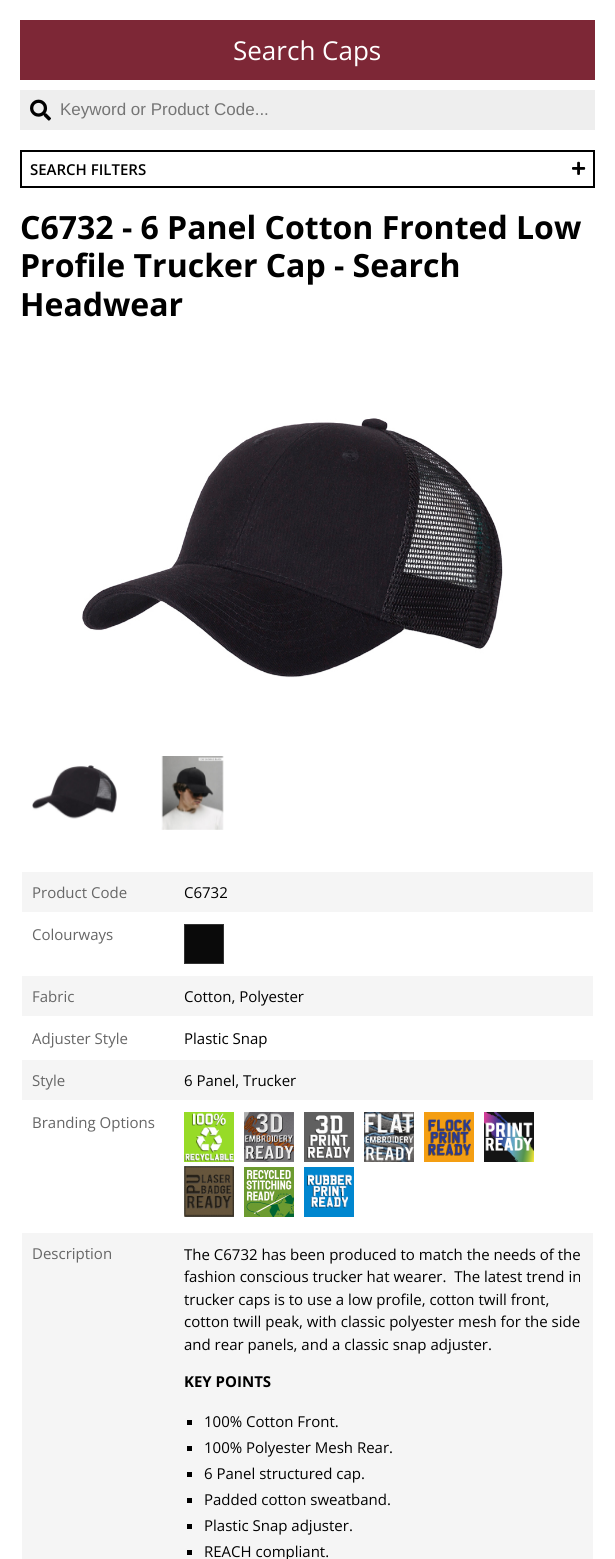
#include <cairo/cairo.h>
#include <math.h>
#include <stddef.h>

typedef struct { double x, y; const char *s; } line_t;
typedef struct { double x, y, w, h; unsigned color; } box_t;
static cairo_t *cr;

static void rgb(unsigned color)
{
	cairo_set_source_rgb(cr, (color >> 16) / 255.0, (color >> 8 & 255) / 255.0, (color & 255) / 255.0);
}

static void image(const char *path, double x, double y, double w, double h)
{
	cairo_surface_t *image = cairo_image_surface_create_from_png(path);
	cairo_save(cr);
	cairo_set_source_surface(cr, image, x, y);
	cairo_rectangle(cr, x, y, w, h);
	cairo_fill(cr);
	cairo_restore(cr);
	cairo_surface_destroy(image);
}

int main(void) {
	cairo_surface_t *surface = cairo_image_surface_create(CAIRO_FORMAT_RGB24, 615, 1559);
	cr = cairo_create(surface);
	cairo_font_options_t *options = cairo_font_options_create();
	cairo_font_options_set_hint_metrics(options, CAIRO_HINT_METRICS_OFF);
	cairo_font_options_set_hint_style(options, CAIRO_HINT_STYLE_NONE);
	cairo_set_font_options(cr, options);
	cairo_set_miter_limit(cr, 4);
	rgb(0xffffff);
	cairo_paint(cr);
	rgb(0x7d2736);
	cairo_rectangle(cr, 20, 20, 575, 60);
	cairo_fill(cr);
	rgb(0xeeeeee);
	cairo_rectangle(cr, 20, 90, 575, 40);
	cairo_fill(cr);
	image("img/1.png", 30, 99, 21, 22);
	cairo_rectangle(cr, 21, 151, 573, 36);
	rgb(0x000000);
	cairo_stroke(cr);
	image("img/2.png", 572, 161, 14, 14);
	image("img/3.png", 82, 418, 421, 260);
	image("img/4.png", 32, 765, 85, 54);
	image("img/5.png", 161, 756, 63, 74);
	rgb(0xf5f5f5);
	cairo_rectangle(cr, 22, 872, 571, 40);
	cairo_fill(cr);
	cairo_rectangle(cr, 184.5, 924.5, 39, 39);
	rgb(0x333333);
	cairo_set_line_width(cr, 1);
	cairo_stroke(cr);
	{
		static const box_t items[] = {
			{185, 925, 38, 38, 0x0a0a0a},
			{22, 976, 571, 40, 0xf5f5f5},
			{22, 1060, 571, 40, 0xf5f5f5},
		};
		for (size_t i = 0; i < sizeof items / sizeof *items; i++) {
			rgb(items[i].color);
			cairo_rectangle(cr, items[i].x, items[i].y, items[i].w, items[i].h);
			cairo_fill(cr);
		}
	}
	image("img/6.png", 184, 1112, 50, 50);
	image("img/7.png", 244, 1112, 50, 50);
	image("img/8.png", 304, 1112, 50, 50);
	image("img/9.png", 364, 1112, 50, 50);
	image("img/10.png", 424, 1112, 50, 50);
	image("img/11.png", 484, 1112, 50, 50);
	image("img/12.png", 184, 1166, 50, 51);
	image("img/13.png", 244, 1167, 50, 50);
	image("img/14.png", 304, 1167, 50, 50);
	{
		static const box_t items[] = {
			{22, 1233, 571, 326, 0xf5f5f5},
			{187, 1420, 5, 5, 0x000000},
			{187, 1446, 5, 5, 0x000000},
			{187, 1472, 5, 5, 0x000000},
			{187, 1498, 5, 5, 0x000000},
			{187, 1524, 5, 5, 0x000000},
			{187, 1550, 5, 5, 0x000000},
		};
		for (size_t i = 0; i < sizeof items / sizeof *items; i++) {
			rgb(items[i].color);
			cairo_rectangle(cr, items[i].x, items[i].y, items[i].w, items[i].h);
			cairo_fill(cr);
		}
	}
	cairo_select_font_face(cr, "Open Sans", CAIRO_FONT_SLANT_NORMAL, CAIRO_FONT_WEIGHT_NORMAL);
	cairo_set_font_size(cr, 26);
	rgb(0xffffff);
	cairo_move_to(cr, 233, 60);
	cairo_show_text(cr, "Search Caps");
	cairo_select_font_face(cr, "Liberation Sans", CAIRO_FONT_SLANT_NORMAL, CAIRO_FONT_WEIGHT_NORMAL);
	cairo_set_font_size(cr, 17);
	rgb(0x757575);
	cairo_move_to(cr, 60, 115);
	cairo_show_text(cr, "Keyword or Product Code...");
	cairo_select_font_face(cr, "Open Sans SemiBold", CAIRO_FONT_SLANT_NORMAL, CAIRO_FONT_WEIGHT_NORMAL);
	cairo_set_font_size(cr, 15);
	rgb(0x000000);
	cairo_move_to(cr, 30, 175);
	cairo_show_text(cr, "SEARCH FILTERS");
	cairo_select_font_face(cr, "Open Sans", CAIRO_FONT_SLANT_NORMAL, CAIRO_FONT_WEIGHT_BOLD);
	cairo_set_font_size(cr, 32);
	{
		static const line_t items[] = {
			{20, 239, "C6732 - 6 Panel Cotton Fronted Low"},
			{20, 277, "Profile Trucker Cap - Search"},
			{20, 316, "Headwear"},
		};
		for (size_t i = 0; i < sizeof items / sizeof *items; i++) {
			cairo_move_to(cr, items[i].x, items[i].y);
			cairo_show_text(cr, items[i].s);
		}
	}
	cairo_select_font_face(cr, "Open Sans", CAIRO_FONT_SLANT_NORMAL, CAIRO_FONT_WEIGHT_NORMAL);
	cairo_set_font_size(cr, 15);
	rgb(0x666666);
	cairo_move_to(cr, 32, 898);
	cairo_show_text(cr, "Product Code");
	rgb(0x000000);
	cairo_move_to(cr, 184, 898);
	cairo_show_text(cr, "C6732");
	rgb(0x666666);
	cairo_move_to(cr, 32, 940);
	cairo_show_text(cr, "Colourways");
	cairo_move_to(cr, 32, 1002);
	cairo_show_text(cr, "Fabric");
	rgb(0x000000);
	cairo_move_to(cr, 184, 1002);
	cairo_show_text(cr, "Cotton, Polyester");
	rgb(0x666666);
	cairo_move_to(cr, 32, 1044);
	cairo_show_text(cr, "Adjuster Style");
	rgb(0x000000);
	cairo_move_to(cr, 184, 1044);
	cairo_show_text(cr, "Plastic Snap");
	rgb(0x666666);
	cairo_move_to(cr, 32, 1086);
	cairo_show_text(cr, "Style");
	rgb(0x000000);
	cairo_move_to(cr, 184, 1086);
	cairo_show_text(cr, "6 Panel, Trucker");
	rgb(0x666666);
	cairo_move_to(cr, 32, 1128);
	cairo_show_text(cr, "Branding Options");
	cairo_move_to(cr, 32, 1259);
	cairo_show_text(cr, "Description");
	rgb(0x000000);
	{
		static const line_t items[] = {
			{184, 1260, "The C6732 has been produced to match the needs of the"},
			{184, 1282, "fashion conscious trucker hat wearer.  The latest trend in"},
			{184, 1305, "trucker caps is to use a low profile, cotton twill front,"},
			{184, 1327, "cotton twill peak, with classic polyester mesh for the side"},
			{184, 1350, "and rear panels, and a classic snap adjuster."},
		};
		for (size_t i = 0; i < sizeof items / sizeof *items; i++) {
			cairo_move_to(cr, items[i].x, items[i].y);
			cairo_show_text(cr, items[i].s);
		}
	}
	cairo_select_font_face(cr, "Open Sans", CAIRO_FONT_SLANT_NORMAL, CAIRO_FONT_WEIGHT_BOLD);
	cairo_move_to(cr, 184, 1387);
	cairo_show_text(cr, "KEY POINTS");
	cairo_select_font_face(cr, "Open Sans", CAIRO_FONT_SLANT_NORMAL, CAIRO_FONT_WEIGHT_NORMAL);
	{
		static const line_t items[] = {
			{204, 1427, "100% Cotton Front."},
			{204, 1453, "100% Polyester Mesh Rear."},
			{204, 1479, "6 Panel structured cap."},
			{204, 1505, "Padded cotton sweatband."},
			{204, 1531, "Plastic Snap adjuster."},
			{204, 1557, "REACH compliant."},
		};
		for (size_t i = 0; i < sizeof items / sizeof *items; i++) {
			cairo_move_to(cr, items[i].x, items[i].y);
			cairo_show_text(cr, items[i].s);
		}
	}
	cairo_surface_write_to_png(surface, "page.png");
	cairo_font_options_destroy(options);
	cairo_destroy(cr);
	cairo_surface_destroy(surface);
	return 0;
}
